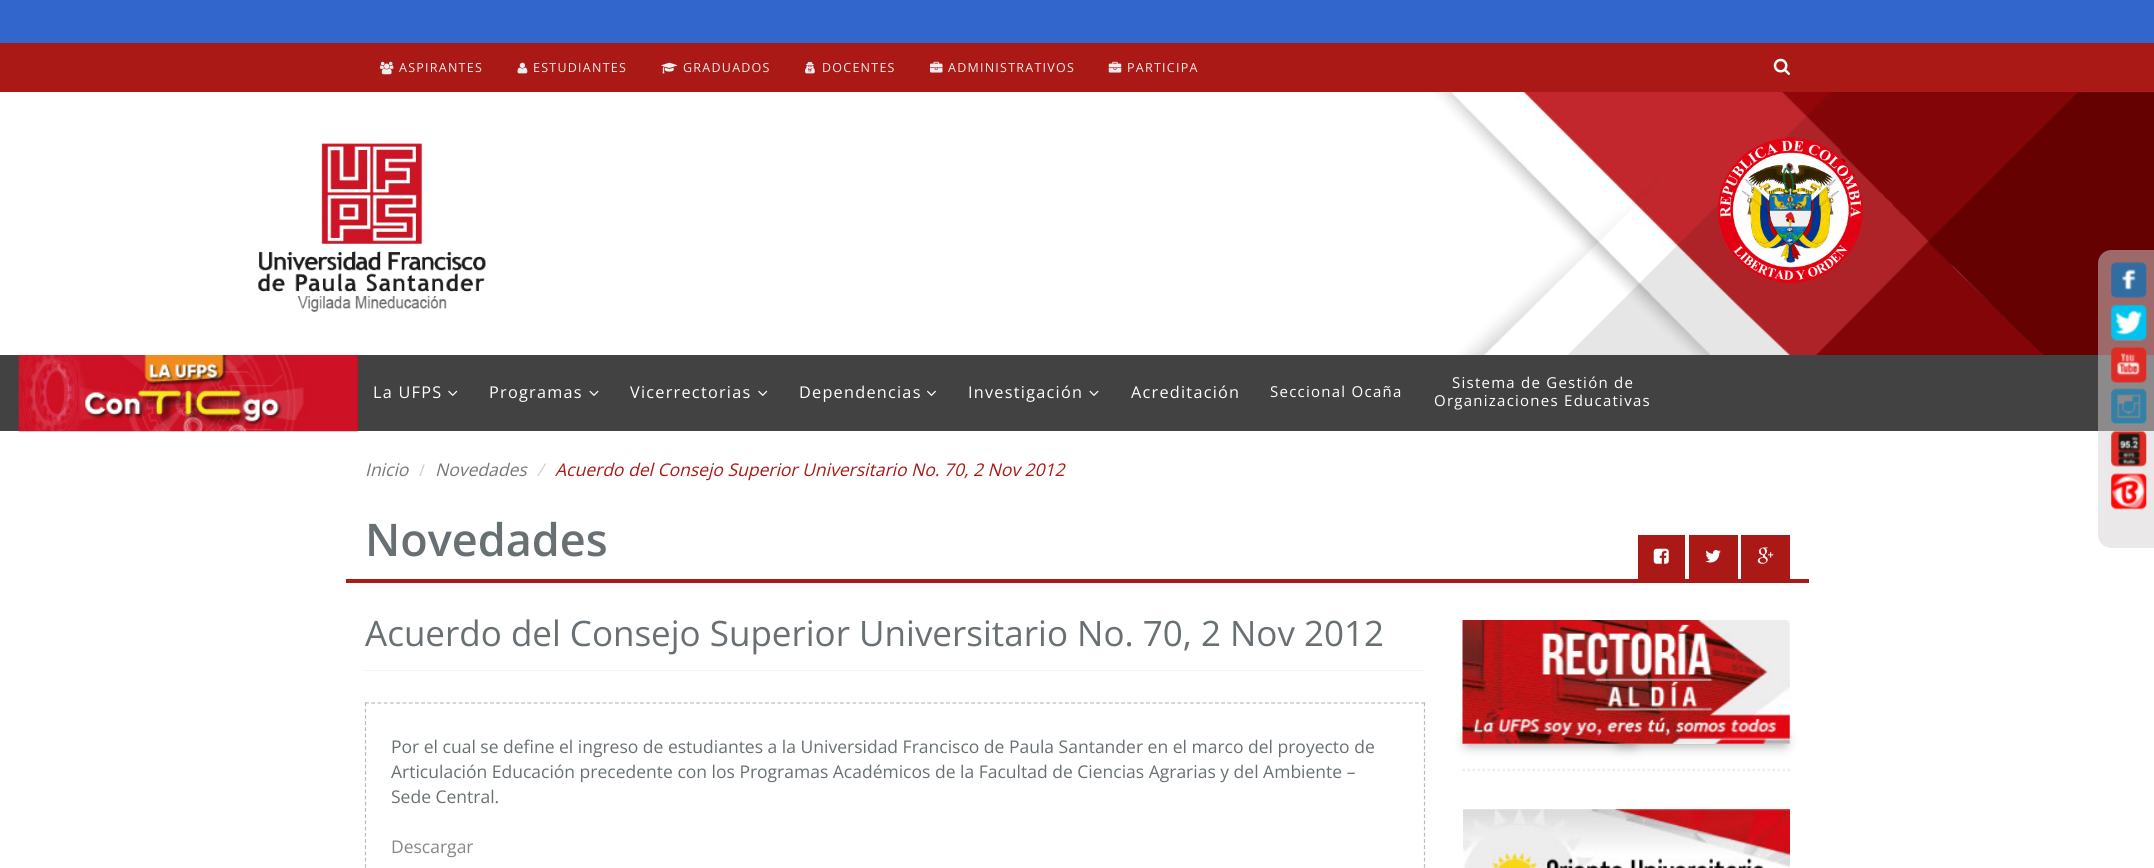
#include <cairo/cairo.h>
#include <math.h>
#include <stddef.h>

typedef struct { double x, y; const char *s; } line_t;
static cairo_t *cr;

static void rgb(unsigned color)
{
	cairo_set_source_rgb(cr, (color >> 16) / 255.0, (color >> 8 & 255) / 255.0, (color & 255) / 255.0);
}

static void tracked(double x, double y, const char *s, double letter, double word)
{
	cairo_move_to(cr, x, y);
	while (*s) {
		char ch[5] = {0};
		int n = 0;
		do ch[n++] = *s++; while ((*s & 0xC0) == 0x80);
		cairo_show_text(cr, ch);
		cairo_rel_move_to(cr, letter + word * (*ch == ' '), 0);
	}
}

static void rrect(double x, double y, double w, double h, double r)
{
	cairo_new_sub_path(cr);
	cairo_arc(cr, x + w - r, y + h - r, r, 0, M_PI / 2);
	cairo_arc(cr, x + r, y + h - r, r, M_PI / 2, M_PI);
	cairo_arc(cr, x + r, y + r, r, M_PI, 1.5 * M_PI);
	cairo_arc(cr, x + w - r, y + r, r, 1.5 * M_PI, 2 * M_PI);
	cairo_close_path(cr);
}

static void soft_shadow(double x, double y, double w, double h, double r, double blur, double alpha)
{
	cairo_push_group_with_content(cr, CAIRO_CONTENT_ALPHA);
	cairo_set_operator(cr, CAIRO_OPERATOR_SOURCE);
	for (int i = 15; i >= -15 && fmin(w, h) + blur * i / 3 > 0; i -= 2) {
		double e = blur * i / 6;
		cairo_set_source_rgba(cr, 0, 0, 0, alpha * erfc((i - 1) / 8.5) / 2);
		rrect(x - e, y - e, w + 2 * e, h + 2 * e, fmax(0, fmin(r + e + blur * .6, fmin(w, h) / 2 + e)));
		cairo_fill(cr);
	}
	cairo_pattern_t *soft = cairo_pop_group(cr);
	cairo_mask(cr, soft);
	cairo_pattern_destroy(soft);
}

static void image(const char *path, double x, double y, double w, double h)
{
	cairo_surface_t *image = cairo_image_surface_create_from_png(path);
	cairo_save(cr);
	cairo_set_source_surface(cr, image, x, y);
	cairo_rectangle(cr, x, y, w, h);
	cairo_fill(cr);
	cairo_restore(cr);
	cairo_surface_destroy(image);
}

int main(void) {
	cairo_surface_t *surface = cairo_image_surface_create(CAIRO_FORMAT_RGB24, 2154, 868);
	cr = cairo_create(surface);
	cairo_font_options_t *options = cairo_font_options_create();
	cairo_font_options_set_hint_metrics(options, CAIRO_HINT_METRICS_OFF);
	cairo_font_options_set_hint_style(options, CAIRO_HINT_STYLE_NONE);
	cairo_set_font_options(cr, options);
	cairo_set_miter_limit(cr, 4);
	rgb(0xffffff);
	cairo_paint(cr);
	rgb(0x3366cc);
	cairo_rectangle(cr, 0, 0, 2154, 43);
	cairo_fill(cr);
	rgb(0xaa1916);
	cairo_rectangle(cr, 0, 43, 2154, 49);
	cairo_fill(cr);
	image("img/1.png", 380, 61, 14, 14);
	image("img/2.png", 517, 62, 11, 12);
	image("img/3.png", 661, 62, 17, 12);
	image("img/4.png", 805, 61, 10, 13);
	image("img/5.png", 930, 61, 13, 12);
	image("img/6.png", 1108, 61, 14, 12);
	image("img/7.png", 1773, 58, 17, 17);
	image("img/8.png", 0, 92, 2154, 263);
	image("img/9.png", 258, 143, 228, 169);
	image("img/10.png", 1718, 138, 145, 145);
	rgb(0x424242);
	cairo_rectangle(cr, 0, 355, 2154, 76);
	cairo_fill(cr);
	rgb(0xaa1916);
	cairo_rectangle(cr, 357, 355, 1, 76);
	cairo_fill(cr);
	image("img/11.png", 18, 355, 340, 77);
	image("img/12.png", 448, 390, 10, 6);
	image("img/13.png", 589, 390, 10, 6);
	image("img/12.png", 758, 390, 10, 6);
	image("img/14.png", 927, 390, 9, 6);
	image("img/13.png", 1089, 390, 10, 6);
	cairo_rectangle(cr, 346, 579, 1463, 4);
	cairo_fill(cr);
	cairo_rectangle(cr, 1638, 535, 47, 44);
	cairo_fill(cr);
	image("img/15.png", 1653, 548, 16, 16);
	cairo_rectangle(cr, 1689, 535, 49, 44);
	cairo_fill(cr);
	image("img/16.png", 1705, 550, 16, 13);
	cairo_rectangle(cr, 1741, 535, 49, 44);
	cairo_fill(cr);
	image("img/17.png", 1757, 547, 17, 17);
	cairo_new_path(cr);
	cairo_move_to(cr, 365, 670.5);
	cairo_line_to(cr, 1425, 670.5);
	rgb(0xe4e9f0);
	cairo_set_line_width(cr, 1.2);
	cairo_set_dash(cr, (double[]){1.25, 1.25}, 2, 0);
	cairo_stroke(cr);
	cairo_new_path(cr);
	cairo_move_to(cr, 365, 703);
	cairo_line_to(cr, 1425, 703);
	rgb(0xbbbbbb);
	cairo_set_dash(cr, (double[]){3.75, 2.5}, 2, 0);
	cairo_stroke(cr);
	cairo_new_path(cr);
	cairo_move_to(cr, 1424.5, 702.5);
	cairo_line_to(cr, 1424.5, 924);
	cairo_set_dash(cr, (double[]){3.75, 2.46}, 2, 0);
	cairo_stroke(cr);
	cairo_new_path(cr);
	cairo_move_to(cr, 365.5, 702.5);
	cairo_line_to(cr, 365.5, 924);
	cairo_stroke(cr);
	rgb(0x999999);
	soft_shadow(1468, 738, 165, 6, 0, 6.5, 1);
	soft_shadow(1620, 738, 164, 6, 0, 6.5, 1);
	rgb(0xffffff);
	cairo_rectangle(cr, 1463, 724, 327, 20);
	cairo_fill(cr);
	image("img/18.png", 1462, 620, 328, 124);
	cairo_new_path(cr);
	cairo_move_to(cr, 1462.5, 770);
	cairo_line_to(cr, 1790, 770);
	rgb(0xeeeeee);
	cairo_set_line_width(cr, 2.5);
	cairo_set_dash(cr, (double[]){2.5, 2.5}, 2, 0);
	cairo_stroke(cr);
	image("img/19.png", 1463, 809, 327, 59);
	cairo_set_source_rgba(cr, 0.839, 0.827, 0.827, 0.5);
	cairo_new_path(cr);
	cairo_move_to(cr, 2111, 250);
	cairo_line_to(cr, 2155, 250);
	cairo_line_to(cr, 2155, 548);
	cairo_line_to(cr, 2111, 548);
	cairo_curve_to(cr, 2104, 548, 2098, 542, 2098, 535);
	cairo_line_to(cr, 2098, 263);
	cairo_curve_to(cr, 2098, 256, 2104, 250, 2111, 250);
	cairo_close_path(cr);
	cairo_fill(cr);
	image("img/20.png", 2111, 262, 36, 36);
	image("img/21.png", 2111, 304, 36, 37);
	image("img/22.png", 2111, 347, 36, 36);
	image("img/23.png", 2111, 388, 36, 37);
	image("img/24.png", 2111, 431, 36, 36);
	image("img/25.png", 2111, 473, 36, 37);
	cairo_select_font_face(cr, "Open Sans", CAIRO_FONT_SLANT_NORMAL, CAIRO_FONT_WEIGHT_NORMAL);
	cairo_set_font_size(cr, 12.5);
	rgb(0xeeeeee);
	{
		static const line_t items[] = {
			{399, 72, "ASPIRANTES"},
			{533, 72, "ESTUDIANTES"},
			{683, 72, "GRADUADOS"},
			{822, 72, "DOCENTES"},
			{948, 72, "ADMINISTRATIVOS"},
			{1127, 72, "PARTICIPA"},
		};
		for (size_t i = 0; i < sizeof items / sizeof *items; i++) {
			tracked(items[i].x, items[i].y, items[i].s, 1.25, 0);
		}
	}
	cairo_set_font_size(cr, 16.25);
	rgb(0xffffff);
	{
		static const line_t items[] = {
			{373, 398, "La UFPS"},
			{489, 398, "Programas"},
			{630, 398, "Vicerrectorias"},
			{799, 398, "Dependencias"},
			{968, 398, "Investigación"},
			{1131, 398, "Acreditación"},
		};
		for (size_t i = 0; i < sizeof items / sizeof *items; i++) {
			tracked(items[i].x, items[i].y, items[i].s, 1.25, 0);
		}
	}
	cairo_set_font_size(cr, 15);
	{
		static const line_t items[] = {
			{1270, 397, "Seccional Ocaña"},
			{1452, 388, "Sistema de Gestión de"},
			{1434, 406, "Organizaciones Educativas"},
		};
		for (size_t i = 0; i < sizeof items / sizeof *items; i++) {
			tracked(items[i].x, items[i].y, items[i].s, 1.25, 0);
		}
	}
	cairo_select_font_face(cr, "Open Sans", CAIRO_FONT_SLANT_ITALIC, CAIRO_FONT_WEIGHT_NORMAL);
	cairo_set_font_size(cr, 17.5);
	rgb(0x777777);
	cairo_move_to(cr, 365, 476);
	cairo_show_text(cr, "Inicio");
	cairo_select_font_face(cr, "Open Sans", CAIRO_FONT_SLANT_NORMAL, CAIRO_FONT_WEIGHT_NORMAL);
	cairo_set_font_size(cr, 16.25);
	rgb(0xcccccc);
	cairo_move_to(cr, 419, 476);
	cairo_show_text(cr, "/");
	cairo_select_font_face(cr, "Open Sans", CAIRO_FONT_SLANT_ITALIC, CAIRO_FONT_WEIGHT_NORMAL);
	cairo_set_font_size(cr, 17.5);
	rgb(0x777777);
	cairo_move_to(cr, 435, 476);
	cairo_show_text(cr, "Novedades");
	rgb(0xcccccc);
	cairo_move_to(cr, 537, 476);
	cairo_show_text(cr, "/");
	rgb(0xaa1916);
	cairo_move_to(cr, 555, 476);
	cairo_show_text(cr, "Acuerdo del Consejo Superior Universitario No. 70, 2 Nov 2012");
	cairo_select_font_face(cr, "Open Sans SemiBold", CAIRO_FONT_SLANT_NORMAL, CAIRO_FONT_WEIGHT_NORMAL);
	cairo_set_font_size(cr, 45);
	rgb(0x687074);
	cairo_move_to(cr, 365, 556);
	cairo_show_text(cr, "Novedades");
	cairo_select_font_face(cr, "Open Sans", CAIRO_FONT_SLANT_NORMAL, CAIRO_FONT_WEIGHT_NORMAL);
	cairo_set_font_size(cr, 35);
	cairo_move_to(cr, 365, 646);
	cairo_show_text(cr, "Acuerdo del Consejo Superior Universitario No. 70, 2 Nov 2012");
	cairo_set_font_size(cr, 17.5);
	{
		static const line_t items[] = {
			{391, 753, "Por el cual se define el ingreso de estudiantes a la Universidad Francisco de Paula Santander en el marco del proyecto de"},
			{391, 778, "Articulación Educación precedente con los Programas Académicos de la Facultad de Ciencias Agrarias y del Ambiente –"},
			{391, 803, "Sede Central."},
		};
		for (size_t i = 0; i < sizeof items / sizeof *items; i++) {
			cairo_move_to(cr, items[i].x, items[i].y);
			cairo_show_text(cr, items[i].s);
		}
	}
	rgb(0x888888);
	cairo_move_to(cr, 391, 853);
	cairo_show_text(cr, "Descargar");
	cairo_surface_write_to_png(surface, "page.png");
	cairo_font_options_destroy(options);
	cairo_destroy(cr);
	cairo_surface_destroy(surface);
	return 0;
}
